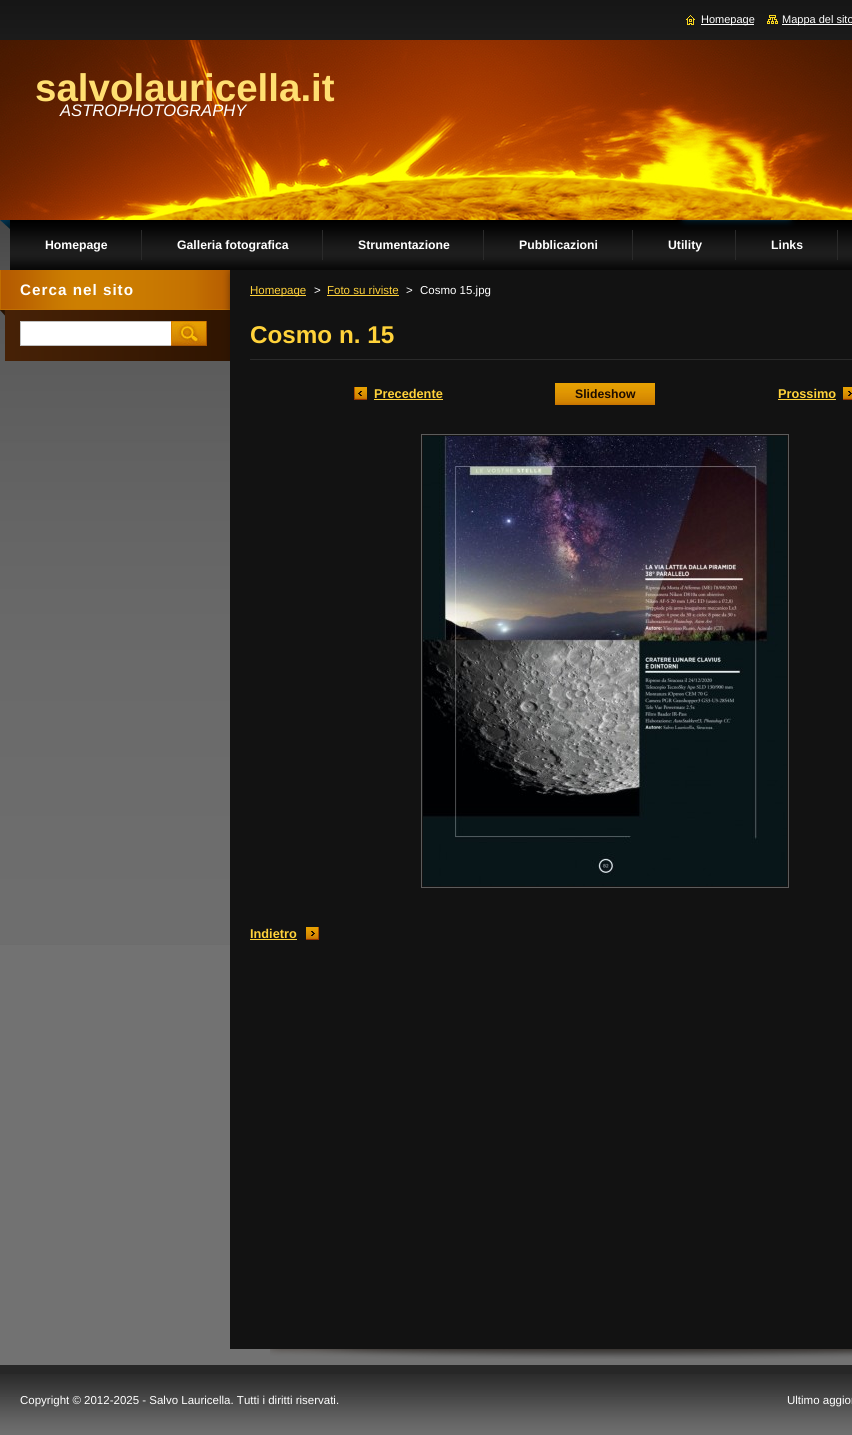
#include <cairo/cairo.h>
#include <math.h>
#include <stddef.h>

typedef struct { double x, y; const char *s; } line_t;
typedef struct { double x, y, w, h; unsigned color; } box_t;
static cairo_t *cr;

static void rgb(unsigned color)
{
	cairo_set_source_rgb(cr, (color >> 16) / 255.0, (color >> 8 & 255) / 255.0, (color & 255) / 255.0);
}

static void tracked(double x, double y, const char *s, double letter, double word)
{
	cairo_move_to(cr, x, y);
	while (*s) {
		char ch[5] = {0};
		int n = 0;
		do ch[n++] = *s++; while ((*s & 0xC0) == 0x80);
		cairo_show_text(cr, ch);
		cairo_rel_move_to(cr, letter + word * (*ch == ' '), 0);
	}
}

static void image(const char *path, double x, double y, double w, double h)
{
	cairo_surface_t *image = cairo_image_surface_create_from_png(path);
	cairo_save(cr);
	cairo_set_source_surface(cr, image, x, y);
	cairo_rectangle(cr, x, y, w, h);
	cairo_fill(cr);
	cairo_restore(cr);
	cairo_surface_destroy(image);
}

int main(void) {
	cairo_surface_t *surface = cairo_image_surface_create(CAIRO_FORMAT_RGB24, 852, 1435);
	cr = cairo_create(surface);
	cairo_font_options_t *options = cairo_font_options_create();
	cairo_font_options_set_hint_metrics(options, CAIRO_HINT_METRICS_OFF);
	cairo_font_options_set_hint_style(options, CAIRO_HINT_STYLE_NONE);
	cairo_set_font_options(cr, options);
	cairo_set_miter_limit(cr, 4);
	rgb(0x727272);
	cairo_paint(cr);
	image("img/1.png", 0, 0, 852, 945);
	image("img/2.png", 686, 15, 9, 10);
	rgb(0xffffff);
	cairo_rectangle(cr, 701, 24, 53, 1);
	cairo_fill(cr);
	image("img/3.png", 767, 15, 11, 9);
	cairo_rectangle(cr, 782, 24, 70, 1);
	cairo_fill(cr);
	image("img/4.png", 0, 40, 852, 180);
	image("img/5.png", 0, 220, 852, 50);
	{
		static const box_t items[] = {
			{141, 230, 1, 30, 0x2a2a2a},
			{322, 230, 1, 30, 0x2a2a2a},
			{483, 230, 1, 30, 0x2a2a2a},
			{632, 230, 1, 30, 0x2a2a2a},
			{735, 230, 1, 30, 0x2a2a2a},
			{837, 230, 1, 30, 0x2a2a2a},
		};
		for (size_t i = 0; i < sizeof items / sizeof *items; i++) {
			rgb(items[i].color);
			cairo_rectangle(cr, items[i].x, items[i].y, items[i].w, items[i].h);
			cairo_fill(cr);
		}
	}
	image("img/6.png", 5, 316, 225, 45);
	image("img/7.png", 0, 270, 230, 46);
	rgb(0xffffff);
	cairo_rectangle(cr, 20.5, 321.5, 151, 24);
	cairo_fill_preserve(cr);
	rgb(0xc1c1c1);
	cairo_set_line_width(cr, 1);
	cairo_stroke(cr);
	image("img/8.png", 171, 321, 36, 25);
	image("img/9.png", 270, 1349, 582, 10);
	{
		static const box_t items[] = {
			{230, 270, 622, 1079, 0x121212},
			{250, 295, 56, 1, 0xffd23a},
			{327, 295, 72, 1, 0xffd23a},
			{250, 359, 602, 1, 0x2a2a2a},
		};
		for (size_t i = 0; i < sizeof items / sizeof *items; i++) {
			rgb(items[i].color);
			cairo_rectangle(cr, items[i].x, items[i].y, items[i].w, items[i].h);
			cairo_fill(cr);
		}
	}
	image("img/10.png", 354, 387, 13, 13);
	rgb(0xffd23a);
	cairo_rectangle(cr, 374, 399, 69, 1);
	cairo_fill(cr);
	image("img/11.png", 555, 383, 100, 22);
	image("img/12.png", 843, 387, 9, 13);
	cairo_rectangle(cr, 778, 399, 58, 1);
	cairo_fill(cr);
	cairo_rectangle(cr, 421.5, 434.5, 367, 453);
	rgb(0x5c5c5c);
	cairo_stroke(cr);
	image("img/13.png", 423, 436, 364, 450);
	image("img/14.png", 306, 927, 13, 13);
	rgb(0xffd23a);
	cairo_rectangle(cr, 250, 939, 47, 1);
	cairo_fill(cr);
	rgb(0x272727);
	cairo_rectangle(cr, 0, 1365, 852, 9);
	cairo_fill(cr);
	image("img/15.png", 0, 1374, 852, 61);
	cairo_select_font_face(cr, "Liberation Sans", CAIRO_FONT_SLANT_NORMAL, CAIRO_FONT_WEIGHT_NORMAL);
	cairo_set_font_size(cr, 11);
	rgb(0xffffff);
	cairo_move_to(cr, 701, 23);
	cairo_show_text(cr, "Homepage");
	cairo_move_to(cr, 782, 23);
	cairo_show_text(cr, "Mappa del sito");
	cairo_select_font_face(cr, "Liberation Sans", CAIRO_FONT_SLANT_NORMAL, CAIRO_FONT_WEIGHT_BOLD);
	cairo_set_font_size(cr, 38.5);
	rgb(0xffdf71);
	cairo_move_to(cr, 35, 101);
	cairo_show_text(cr, "salvolauricella.it");
	cairo_select_font_face(cr, "Liberation Sans", CAIRO_FONT_SLANT_ITALIC, CAIRO_FONT_WEIGHT_NORMAL);
	cairo_set_font_size(cr, 16.6);
	rgb(0xffffff);
	cairo_move_to(cr, 60, 116);
	cairo_show_text(cr, "ASTROPHOTOGRAPHY");
	cairo_select_font_face(cr, "Liberation Sans", CAIRO_FONT_SLANT_NORMAL, CAIRO_FONT_WEIGHT_BOLD);
	cairo_set_font_size(cr, 12.25);
	{
		static const line_t items[] = {
			{45, 249, "Homepage"},
			{177, 249, "Galleria fotografica"},
			{358, 249, "Strumentazione"},
			{519, 249, "Pubblicazioni"},
			{668, 249, "Utility"},
			{771, 249, "Links"},
		};
		for (size_t i = 0; i < sizeof items / sizeof *items; i++) {
			cairo_move_to(cr, items[i].x, items[i].y);
			cairo_show_text(cr, items[i].s);
		}
	}
	cairo_set_font_size(cr, 15.25);
	tracked(20, 295, "Cerca nel sito", 1, 0);
	cairo_select_font_face(cr, "Liberation Sans", CAIRO_FONT_SLANT_NORMAL, CAIRO_FONT_WEIGHT_NORMAL);
	cairo_set_font_size(cr, 11.5);
	rgb(0xffd23a);
	cairo_move_to(cr, 250, 294);
	cairo_show_text(cr, "Homepage");
	rgb(0xffffff);
	cairo_move_to(cr, 314, 294);
	cairo_show_text(cr, ">");
	rgb(0xffd23a);
	cairo_move_to(cr, 327, 294);
	cairo_show_text(cr, "Foto su riviste");
	rgb(0xffffff);
	cairo_move_to(cr, 406, 294);
	cairo_show_text(cr, ">");
	cairo_move_to(cr, 420, 294);
	cairo_show_text(cr, "Cosmo 15.jpg");
	cairo_select_font_face(cr, "Liberation Sans", CAIRO_FONT_SLANT_NORMAL, CAIRO_FONT_WEIGHT_BOLD);
	cairo_set_font_size(cr, 24.25);
	rgb(0xffd23a);
	cairo_move_to(cr, 250, 343);
	cairo_show_text(cr, "Cosmo n. 15");
	cairo_set_font_size(cr, 12.75);
	cairo_move_to(cr, 374, 398);
	cairo_show_text(cr, "Precedente");
	cairo_set_font_size(cr, 12.25);
	rgb(0x1c0c00);
	cairo_move_to(cr, 575, 398);
	cairo_show_text(cr, "Slideshow");
	cairo_set_font_size(cr, 12.75);
	rgb(0xffd23a);
	cairo_move_to(cr, 778, 398);
	cairo_show_text(cr, "Prossimo");
	cairo_move_to(cr, 250, 938);
	cairo_show_text(cr, "Indietro");
	cairo_select_font_face(cr, "Liberation Sans", CAIRO_FONT_SLANT_NORMAL, CAIRO_FONT_WEIGHT_NORMAL);
	cairo_set_font_size(cr, 11.5);
	rgb(0xffffff);
	cairo_move_to(cr, 20, 1404);
	cairo_show_text(cr, "Copyright © 2012-2025 - Salvo Lauricella. Tutti i diritti riservati.");
	cairo_move_to(cr, 787, 1404);
	cairo_show_text(cr, "Ultimo aggior");
	cairo_surface_write_to_png(surface, "page.png");
	cairo_font_options_destroy(options);
	cairo_destroy(cr);
	cairo_surface_destroy(surface);
	return 0;
}
